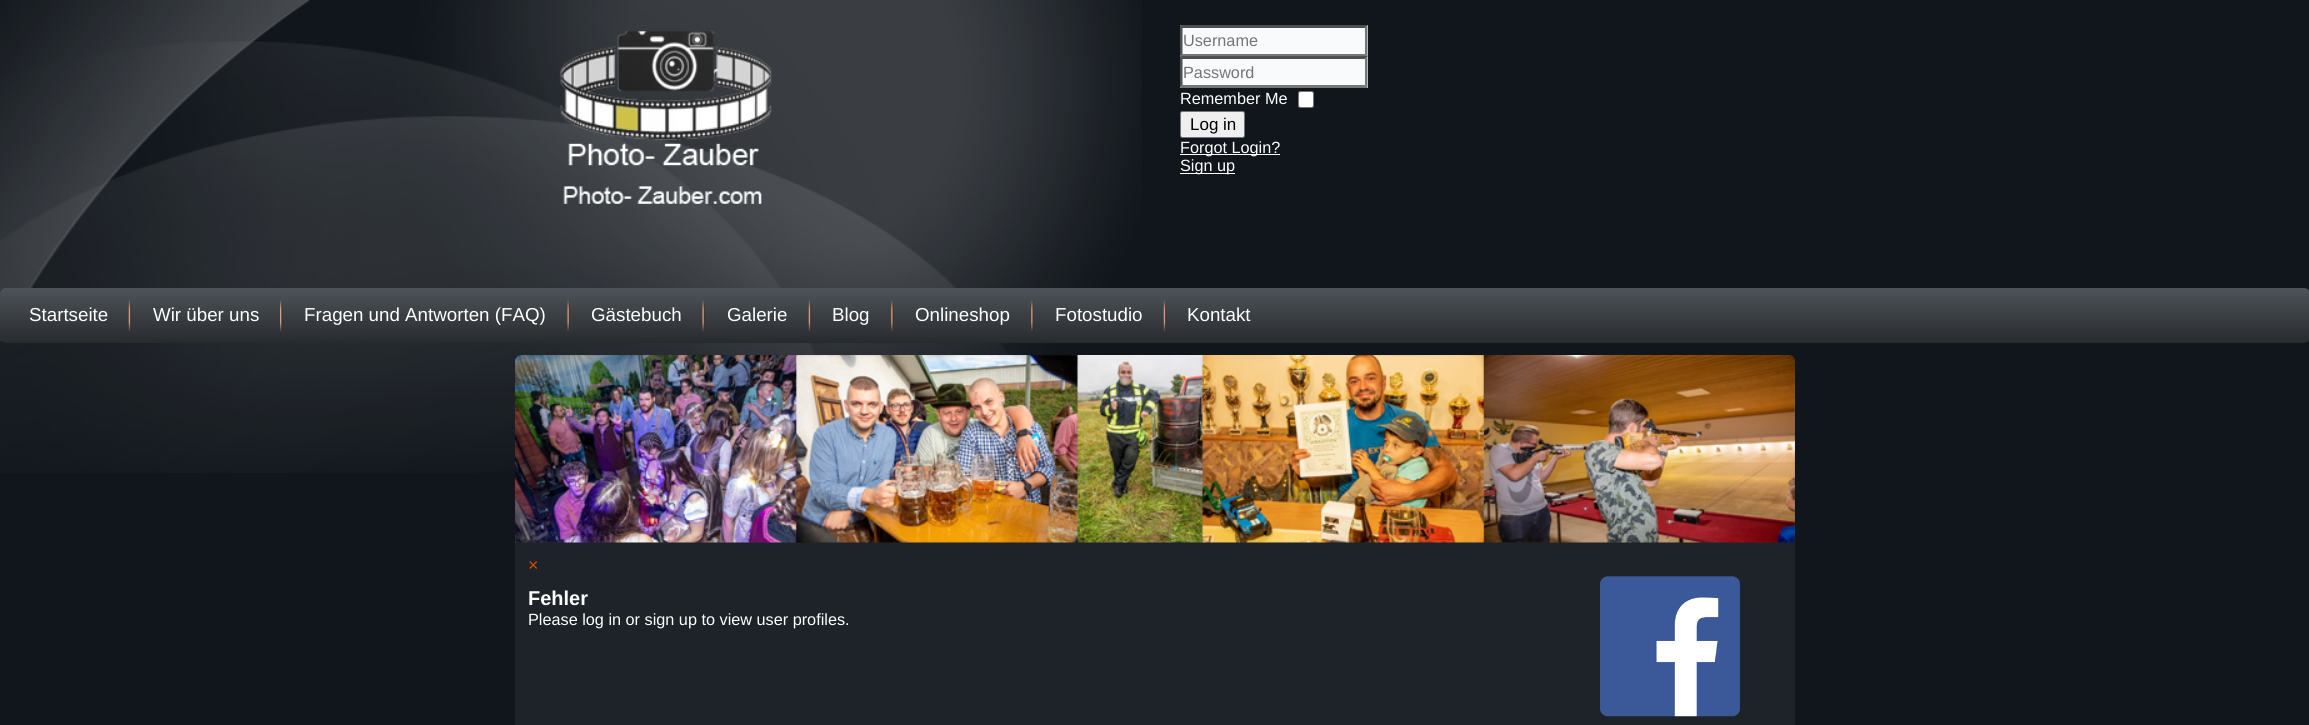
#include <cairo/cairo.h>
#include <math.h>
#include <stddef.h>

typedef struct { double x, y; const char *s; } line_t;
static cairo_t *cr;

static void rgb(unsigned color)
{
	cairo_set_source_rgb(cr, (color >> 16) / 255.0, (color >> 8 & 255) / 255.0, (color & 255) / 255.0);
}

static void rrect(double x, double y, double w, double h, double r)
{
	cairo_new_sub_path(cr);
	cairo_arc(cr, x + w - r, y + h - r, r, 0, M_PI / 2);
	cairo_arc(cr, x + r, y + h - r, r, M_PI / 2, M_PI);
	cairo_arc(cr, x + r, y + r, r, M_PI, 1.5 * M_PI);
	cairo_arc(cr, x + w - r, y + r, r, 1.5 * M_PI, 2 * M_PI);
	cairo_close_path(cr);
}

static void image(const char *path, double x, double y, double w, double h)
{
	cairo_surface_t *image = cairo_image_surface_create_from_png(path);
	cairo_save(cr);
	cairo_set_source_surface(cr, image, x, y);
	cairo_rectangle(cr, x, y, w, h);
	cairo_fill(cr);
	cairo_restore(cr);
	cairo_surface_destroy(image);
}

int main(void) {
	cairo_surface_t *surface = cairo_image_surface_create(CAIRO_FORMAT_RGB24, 2309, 725);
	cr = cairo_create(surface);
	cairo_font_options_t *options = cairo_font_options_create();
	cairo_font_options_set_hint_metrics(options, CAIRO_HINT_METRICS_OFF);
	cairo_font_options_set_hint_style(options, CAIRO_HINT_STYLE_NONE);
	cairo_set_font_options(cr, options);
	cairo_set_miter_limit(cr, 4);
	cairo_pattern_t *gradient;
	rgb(0x11161c);
	cairo_paint(cr);
	image("img/1.png", 0, 0, 1142, 473);
	rgb(0xf9fafb);
	cairo_rectangle(cr, 1180, 25, 188, 63);
	cairo_fill(cr);
	rgb(0x4f4f4f);
	cairo_new_path(cr);
	cairo_move_to(cr, 1180, 25);
	cairo_line_to(cr, 1368, 25);
	cairo_line_to(cr, 1365, 28);
	cairo_line_to(cr, 1182, 28);
	cairo_close_path(cr);
	cairo_fill(cr);
	rgb(0x767676);
	cairo_new_path(cr);
	cairo_move_to(cr, 1367.5, 25);
	cairo_line_to(cr, 1367.5, 56);
	cairo_line_to(cr, 1365, 54);
	cairo_line_to(cr, 1365, 27.5);
	cairo_close_path(cr);
	cairo_fill(cr);
	cairo_new_path(cr);
	cairo_move_to(cr, 1368, 56);
	cairo_line_to(cr, 1180, 56);
	cairo_line_to(cr, 1182, 54);
	cairo_line_to(cr, 1365, 54);
	cairo_close_path(cr);
	cairo_fill(cr);
	rgb(0x4f4f4f);
	cairo_new_path(cr);
	cairo_move_to(cr, 1180, 56);
	cairo_line_to(cr, 1180, 25);
	cairo_line_to(cr, 1182.5, 27.5);
	cairo_line_to(cr, 1182.5, 54);
	cairo_close_path(cr);
	cairo_fill(cr);
	cairo_new_path(cr);
	cairo_move_to(cr, 1180, 56);
	cairo_line_to(cr, 1368, 56);
	cairo_line_to(cr, 1365, 59);
	cairo_line_to(cr, 1182, 59);
	cairo_close_path(cr);
	cairo_fill(cr);
	rgb(0x767676);
	cairo_new_path(cr);
	cairo_move_to(cr, 1367.5, 56);
	cairo_line_to(cr, 1367.5, 87.5);
	cairo_line_to(cr, 1365, 85);
	cairo_line_to(cr, 1365, 59);
	cairo_close_path(cr);
	cairo_fill(cr);
	cairo_new_path(cr);
	cairo_move_to(cr, 1368, 88);
	cairo_line_to(cr, 1180, 88);
	cairo_line_to(cr, 1182, 85);
	cairo_line_to(cr, 1365, 85);
	cairo_close_path(cr);
	cairo_fill(cr);
	rgb(0x4f4f4f);
	cairo_new_path(cr);
	cairo_move_to(cr, 1180, 87.5);
	cairo_line_to(cr, 1180, 56);
	cairo_line_to(cr, 1182.5, 59);
	cairo_line_to(cr, 1182.5, 85);
	cairo_close_path(cr);
	cairo_fill(cr);
	rgb(0xffffff);
	rrect(1298.5, 91.5, 15, 16, 2);
	cairo_fill_preserve(cr);
	rgb(0x767676);
	cairo_set_line_width(cr, 1);
	cairo_stroke(cr);
	rgb(0xefefef);
	rrect(1180.5, 111.5, 64, 26, 2);
	cairo_fill_preserve(cr);
	rgb(0x767676);
	cairo_stroke(cr);
	rgb(0xffffff);
	cairo_rectangle(cr, 1180, 154, 100, 1);
	cairo_fill(cr);
	cairo_rectangle(cr, 1180, 173, 55, 1);
	cairo_fill(cr);
	gradient = cairo_pattern_create_linear(1155, 287, 1155, 343);
	cairo_pattern_add_color_stop_rgba(gradient, 0, 0.306, 0.329, 0.353, 1);
	cairo_pattern_add_color_stop_rgba(gradient, 1, 0.157, 0.169, 0.18, 1);
	cairo_set_source(cr, gradient);
	cairo_pattern_destroy(gradient);
	rrect(0, 288, 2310, 55, 6);
	cairo_fill(cr);
	image("img/2.png", 128, 300, 4, 32);
	image("img/3.png", 280, 300, 3, 32);
	image("img/4.png", 567, 300, 3, 32);
	image("img/4.png", 702, 300, 3, 32);
	image("img/2.png", 808, 300, 4, 32);
	image("img/5.png", 891, 300, 3, 32);
	image("img/5.png", 1031, 300, 3, 32);
	image("img/2.png", 1163, 300, 4, 32);
	rgb(0x1e2329);
	rrect(515, 355, 1280, 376, 6);
	cairo_fill(cr);
	image("img/6.png", 514, 355, 1281, 188);
	image("img/7.png", 1600, 576, 140, 141);
	cairo_select_font_face(cr, "Liberation Sans", CAIRO_FONT_SLANT_NORMAL, CAIRO_FONT_WEIGHT_NORMAL);
	cairo_set_font_size(cr, 16.25);
	rgb(0x757575);
	cairo_move_to(cr, 1183, 46);
	cairo_show_text(cr, "Username");
	cairo_move_to(cr, 1183, 78);
	cairo_show_text(cr, "Password");
	rgb(0xffffff);
	cairo_move_to(cr, 1180, 104);
	cairo_show_text(cr, "Remember Me");
	cairo_set_font_size(cr, 17);
	rgb(0x000000);
	cairo_move_to(cr, 1190, 130);
	cairo_show_text(cr, "Log in");
	cairo_set_font_size(cr, 16.25);
	rgb(0xffffff);
	cairo_move_to(cr, 1180, 153);
	cairo_show_text(cr, "Forgot Login?");
	cairo_move_to(cr, 1180, 171);
	cairo_show_text(cr, "Sign up");
	cairo_set_font_size(cr, 18.75);
	{
		static const line_t items[] = {
			{29, 321, "Startseite"},
			{153, 321, "Wir über uns"},
			{304, 321, "Fragen und Antworten (FAQ)"},
			{591, 321, "Gästebuch"},
			{727, 321, "Galerie"},
			{832, 321, "Blog"},
			{915, 321, "Onlineshop"},
			{1055, 321, "Fotostudio"},
			{1187, 321, "Kontakt"},
		};
		for (size_t i = 0; i < sizeof items / sizeof *items; i++) {
			cairo_move_to(cr, items[i].x, items[i].y);
			cairo_show_text(cr, items[i].s);
		}
	}
	cairo_set_font_size(cr, 18);
	rgb(0xd24904);
	cairo_move_to(cr, 528, 571);
	cairo_show_text(cr, "×");
	cairo_select_font_face(cr, "Liberation Sans", CAIRO_FONT_SLANT_NORMAL, CAIRO_FONT_WEIGHT_BOLD);
	cairo_set_font_size(cr, 20);
	rgb(0xffffff);
	cairo_move_to(cr, 528, 605);
	cairo_show_text(cr, "Fehler");
	cairo_select_font_face(cr, "Liberation Sans", CAIRO_FONT_SLANT_NORMAL, CAIRO_FONT_WEIGHT_NORMAL);
	cairo_set_font_size(cr, 16.25);
	cairo_move_to(cr, 528, 625);
	cairo_show_text(cr, "Please log in or sign up to view user profiles.");
	cairo_surface_write_to_png(surface, "page.png");
	cairo_font_options_destroy(options);
	cairo_destroy(cr);
	cairo_surface_destroy(surface);
	return 0;
}
